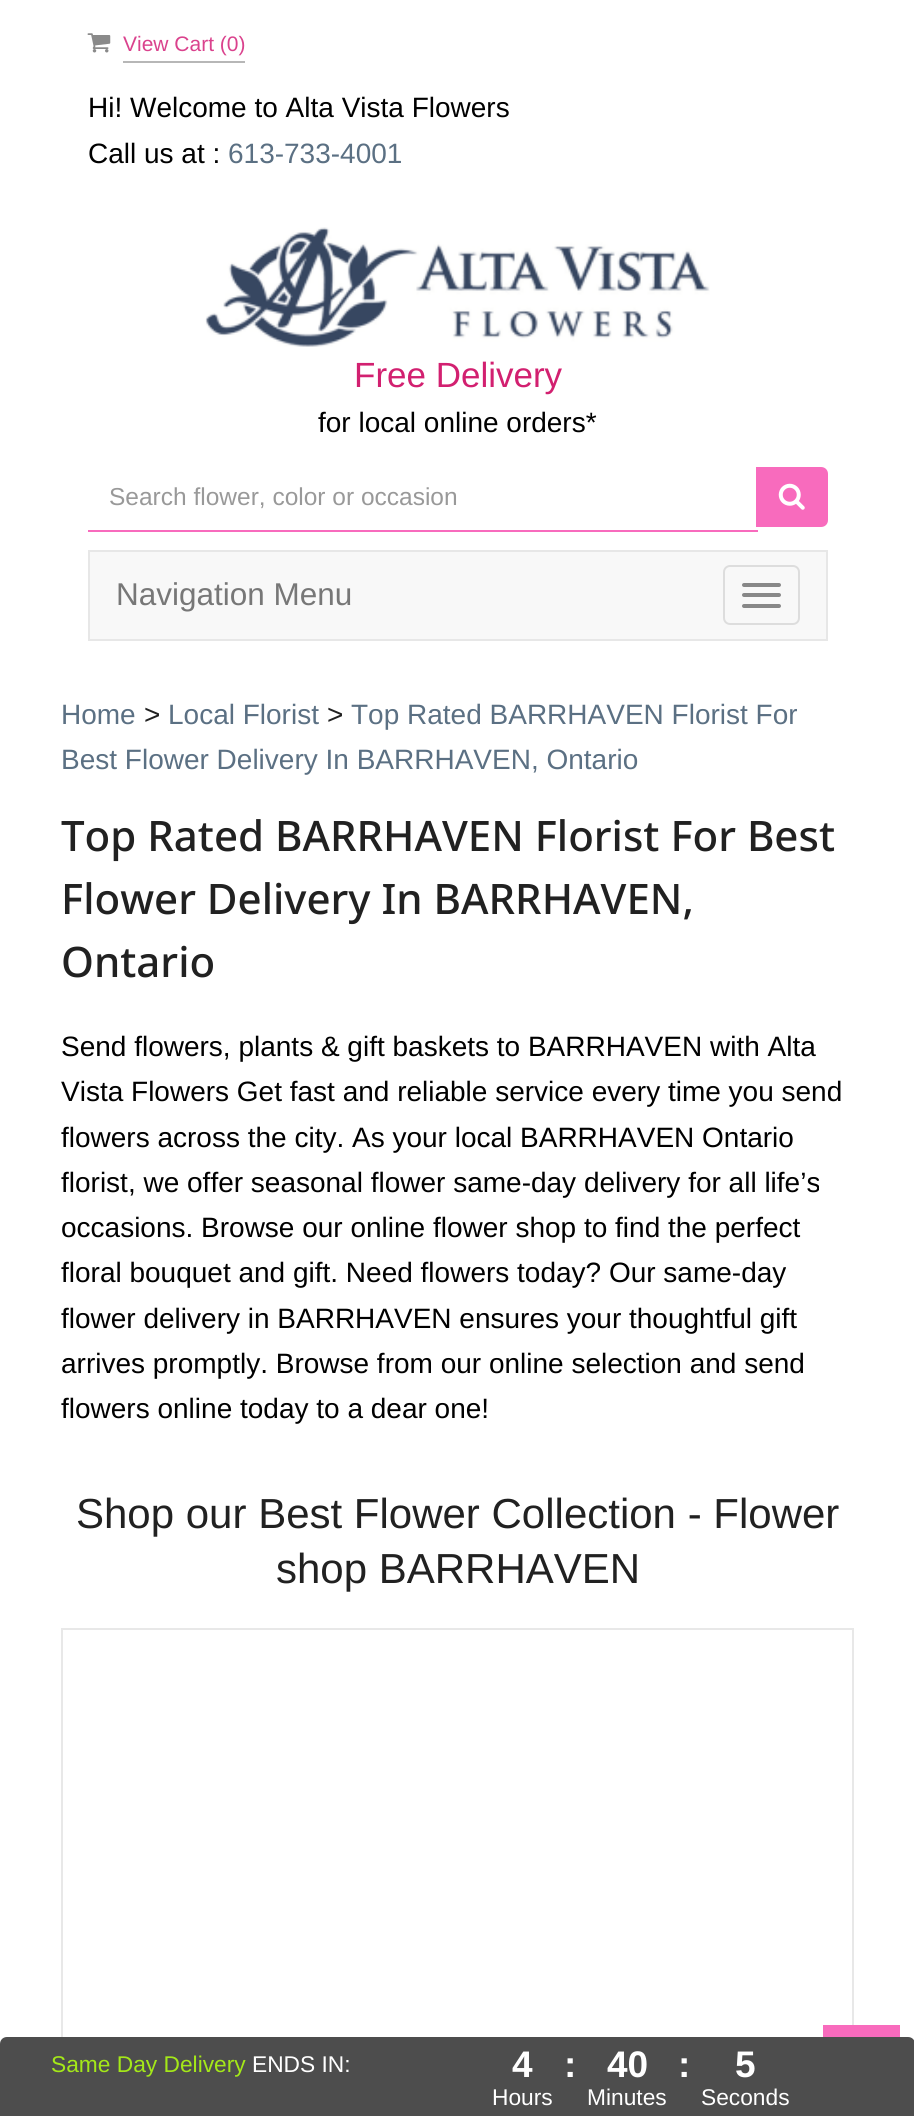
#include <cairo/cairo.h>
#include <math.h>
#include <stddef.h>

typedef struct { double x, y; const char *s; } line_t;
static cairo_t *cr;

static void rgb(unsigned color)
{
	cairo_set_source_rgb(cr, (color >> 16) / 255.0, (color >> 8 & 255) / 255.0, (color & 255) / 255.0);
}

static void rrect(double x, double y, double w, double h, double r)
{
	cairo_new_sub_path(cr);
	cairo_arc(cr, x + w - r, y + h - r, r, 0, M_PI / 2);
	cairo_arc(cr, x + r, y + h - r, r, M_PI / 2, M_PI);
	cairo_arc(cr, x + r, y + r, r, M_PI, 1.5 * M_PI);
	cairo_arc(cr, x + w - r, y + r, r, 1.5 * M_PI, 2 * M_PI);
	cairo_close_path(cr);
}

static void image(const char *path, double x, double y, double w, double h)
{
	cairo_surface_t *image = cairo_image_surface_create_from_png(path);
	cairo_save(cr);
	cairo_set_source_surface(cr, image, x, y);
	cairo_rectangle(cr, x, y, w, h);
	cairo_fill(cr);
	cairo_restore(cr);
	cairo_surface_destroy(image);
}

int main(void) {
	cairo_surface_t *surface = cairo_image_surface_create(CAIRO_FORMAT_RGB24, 914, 2116);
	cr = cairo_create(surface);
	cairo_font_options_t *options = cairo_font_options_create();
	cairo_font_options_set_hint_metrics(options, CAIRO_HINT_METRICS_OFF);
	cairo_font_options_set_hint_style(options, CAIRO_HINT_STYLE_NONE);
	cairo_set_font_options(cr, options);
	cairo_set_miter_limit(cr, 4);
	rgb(0xffffff);
	cairo_paint(cr);
	image("img/1.png", 87, 33, 24, 20);
	rgb(0xb7b7b7);
	cairo_rectangle(cr, 123, 61, 122, 2);
	cairo_fill(cr);
	image("img/2.png", 205, 227, 505, 120);
	rgb(0xf86bbd);
	cairo_rectangle(cr, 88, 530, 670, 2);
	cairo_fill(cr);
	cairo_new_path(cr);
	cairo_move_to(cr, 757, 468);
	cairo_line_to(cr, 821, 468);
	cairo_curve_to(cr, 824.5, 468, 827, 470.5, 827, 474);
	cairo_line_to(cr, 827, 520);
	cairo_curve_to(cr, 827, 523.5, 824.5, 526, 821, 526);
	cairo_line_to(cr, 757, 526);
	cairo_close_path(cr);
	cairo_fill_preserve(cr);
	cairo_stroke(cr);
	image("img/3.png", 778, 483, 27, 27);
	rgb(0xf8f8f8);
	cairo_rectangle(cr, 89, 551, 738, 89);
	cairo_fill_preserve(cr);
	rgb(0xe7e7e7);
	cairo_stroke(cr);
	rrect(724, 566, 75, 58, 6);
	rgb(0xdddddd);
	cairo_stroke(cr);
	rgb(0x888888);
	rrect(742, 583, 39, 4, 2);
	cairo_fill(cr);
	rrect(742, 593, 39, 4, 2);
	cairo_fill(cr);
	rrect(742, 604, 39, 4, 2);
	cairo_fill(cr);
	cairo_rectangle(cr, 62, 1629, 791, 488);
	rgb(0xe8e8e8);
	cairo_stroke(cr);
	rgb(0xf86bbd);
	cairo_rectangle(cr, 823, 2025, 77, 12);
	cairo_fill(cr);
	rgb(0x4d4d4d);
	cairo_new_path(cr);
	cairo_move_to(cr, 7, 2037);
	cairo_line_to(cr, 908, 2037);
	cairo_curve_to(cr, 912, 2037, 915, 2040, 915, 2044);
	cairo_line_to(cr, 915, 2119);
	cairo_line_to(cr, 0, 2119);
	cairo_line_to(cr, 0, 2044);
	cairo_curve_to(cr, 0, 2040, 3, 2037, 7, 2037);
	cairo_close_path(cr);
	cairo_fill(cr);
	cairo_select_font_face(cr, "Liberation Sans", CAIRO_FONT_SLANT_NORMAL, CAIRO_FONT_WEIGHT_NORMAL);
	cairo_set_font_size(cr, 21);
	rgb(0xda428d);
	cairo_move_to(cr, 123, 51);
	cairo_show_text(cr, "View Cart (0)");
	cairo_set_font_size(cr, 28);
	rgb(0x000000);
	cairo_move_to(cr, 88, 117);
	cairo_show_text(cr, "Hi! Welcome to Alta Vista Flowers");
	cairo_move_to(cr, 88, 163);
	cairo_show_text(cr, "Call us at :");
	rgb(0x5b7083);
	cairo_move_to(cr, 228, 163);
	cairo_show_text(cr, "613-733-4001");
	cairo_set_font_size(cr, 35);
	rgb(0xd22070);
	cairo_move_to(cr, 354, 387);
	cairo_show_text(cr, "Free Delivery");
	cairo_set_font_size(cr, 28);
	rgb(0x000000);
	cairo_move_to(cr, 318, 432);
	cairo_show_text(cr, "for local online orders*");
	cairo_set_font_size(cr, 24.5);
	rgb(0x999999);
	cairo_move_to(cr, 109, 505);
	cairo_show_text(cr, "Search flower, color or occasion");
	cairo_set_font_size(cr, 31.5);
	rgb(0x777777);
	cairo_move_to(cr, 116, 605);
	cairo_show_text(cr, "Navigation Menu");
	cairo_set_font_size(cr, 28);
	rgb(0x5b7083);
	cairo_move_to(cr, 61, 724);
	cairo_show_text(cr, "Home");
	rgb(0x212121);
	cairo_move_to(cr, 144, 724);
	cairo_show_text(cr, ">");
	rgb(0x5b7083);
	cairo_move_to(cr, 168, 724);
	cairo_show_text(cr, "Local Florist");
	rgb(0x212121);
	cairo_move_to(cr, 327, 724);
	cairo_show_text(cr, ">");
	rgb(0x5b7083);
	cairo_move_to(cr, 351, 724);
	cairo_show_text(cr, "Top Rated BARRHAVEN Florist For");
	cairo_move_to(cr, 61, 769);
	cairo_show_text(cr, "Best Flower Delivery In BARRHAVEN, Ontario");
	cairo_select_font_face(cr, "Noto Sans Medium", CAIRO_FONT_SLANT_NORMAL, CAIRO_FONT_WEIGHT_NORMAL);
	cairo_set_font_size(cr, 42);
	rgb(0x212121);
	{
		static const line_t items[] = {
			{61, 851, "Top Rated BARRHAVEN Florist For Best"},
			{61, 914, "Flower Delivery In BARRHAVEN,"},
			{61, 977, "Ontario"},
		};
		for (size_t i = 0; i < sizeof items / sizeof *items; i++) {
			cairo_move_to(cr, items[i].x, items[i].y);
			cairo_show_text(cr, items[i].s);
		}
	}
	cairo_select_font_face(cr, "Liberation Sans", CAIRO_FONT_SLANT_NORMAL, CAIRO_FONT_WEIGHT_NORMAL);
	cairo_set_font_size(cr, 28);
	rgb(0x000000);
	{
		static const line_t items[] = {
			{61, 1056, "Send flowers, plants & gift baskets to BARRHAVEN with Alta"},
			{61, 1101, "Vista Flowers Get fast and reliable service every time you send"},
			{61, 1147, "flowers across the city. As your local BARRHAVEN Ontario"},
			{61, 1192, "florist, we offer seasonal flower same-day delivery for all life’s"},
			{61, 1237, "occasions. Browse our online flower shop to find the perfect"},
			{61, 1282, "floral bouquet and gift. Need flowers today? Our same-day"},
			{61, 1328, "flower delivery in BARRHAVEN ensures your thoughtful gift"},
			{61, 1373, "arrives promptly. Browse from our online selection and send"},
			{61, 1418, "flowers online today to a dear one!"},
		};
		for (size_t i = 0; i < sizeof items / sizeof *items; i++) {
			cairo_move_to(cr, items[i].x, items[i].y);
			cairo_show_text(cr, items[i].s);
		}
	}
	cairo_set_font_size(cr, 42);
	rgb(0x212121);
	cairo_move_to(cr, 76, 1528);
	cairo_show_text(cr, "Shop our Best Flower Collection - Flower");
	cairo_move_to(cr, 276, 1583);
	cairo_show_text(cr, "shop BARRHAVEN");
	cairo_set_font_size(cr, 22.75);
	rgb(0xa4e818);
	cairo_move_to(cr, 51, 2072);
	cairo_show_text(cr, "Same Day Delivery");
	rgb(0xffffff);
	cairo_move_to(cr, 252, 2072);
	cairo_show_text(cr, "ENDS IN:");
	cairo_select_font_face(cr, "Liberation Sans", CAIRO_FONT_SLANT_NORMAL, CAIRO_FONT_WEIGHT_BOLD);
	cairo_set_font_size(cr, 37);
	cairo_move_to(cr, 512, 2077);
	cairo_show_text(cr, "4");
	cairo_select_font_face(cr, "Liberation Sans", CAIRO_FONT_SLANT_NORMAL, CAIRO_FONT_WEIGHT_NORMAL);
	cairo_set_font_size(cr, 22.75);
	cairo_move_to(cr, 492, 2105);
	cairo_show_text(cr, "Hours");
	cairo_select_font_face(cr, "Liberation Sans", CAIRO_FONT_SLANT_NORMAL, CAIRO_FONT_WEIGHT_BOLD);
	cairo_set_font_size(cr, 37);
	cairo_move_to(cr, 564, 2077);
	cairo_show_text(cr, ":");
	cairo_move_to(cr, 607, 2077);
	cairo_show_text(cr, "40");
	cairo_select_font_face(cr, "Liberation Sans", CAIRO_FONT_SLANT_NORMAL, CAIRO_FONT_WEIGHT_NORMAL);
	cairo_set_font_size(cr, 22.75);
	cairo_move_to(cr, 587, 2105);
	cairo_show_text(cr, "Minutes");
	cairo_select_font_face(cr, "Liberation Sans", CAIRO_FONT_SLANT_NORMAL, CAIRO_FONT_WEIGHT_BOLD);
	cairo_set_font_size(cr, 37);
	cairo_move_to(cr, 678, 2077);
	cairo_show_text(cr, ":");
	cairo_move_to(cr, 735, 2077);
	cairo_show_text(cr, "5");
	cairo_select_font_face(cr, "Liberation Sans", CAIRO_FONT_SLANT_NORMAL, CAIRO_FONT_WEIGHT_NORMAL);
	cairo_set_font_size(cr, 22.75);
	cairo_move_to(cr, 701, 2105);
	cairo_show_text(cr, "Seconds");
	cairo_surface_write_to_png(surface, "page.png");
	cairo_font_options_destroy(options);
	cairo_destroy(cr);
	cairo_surface_destroy(surface);
	return 0;
}
